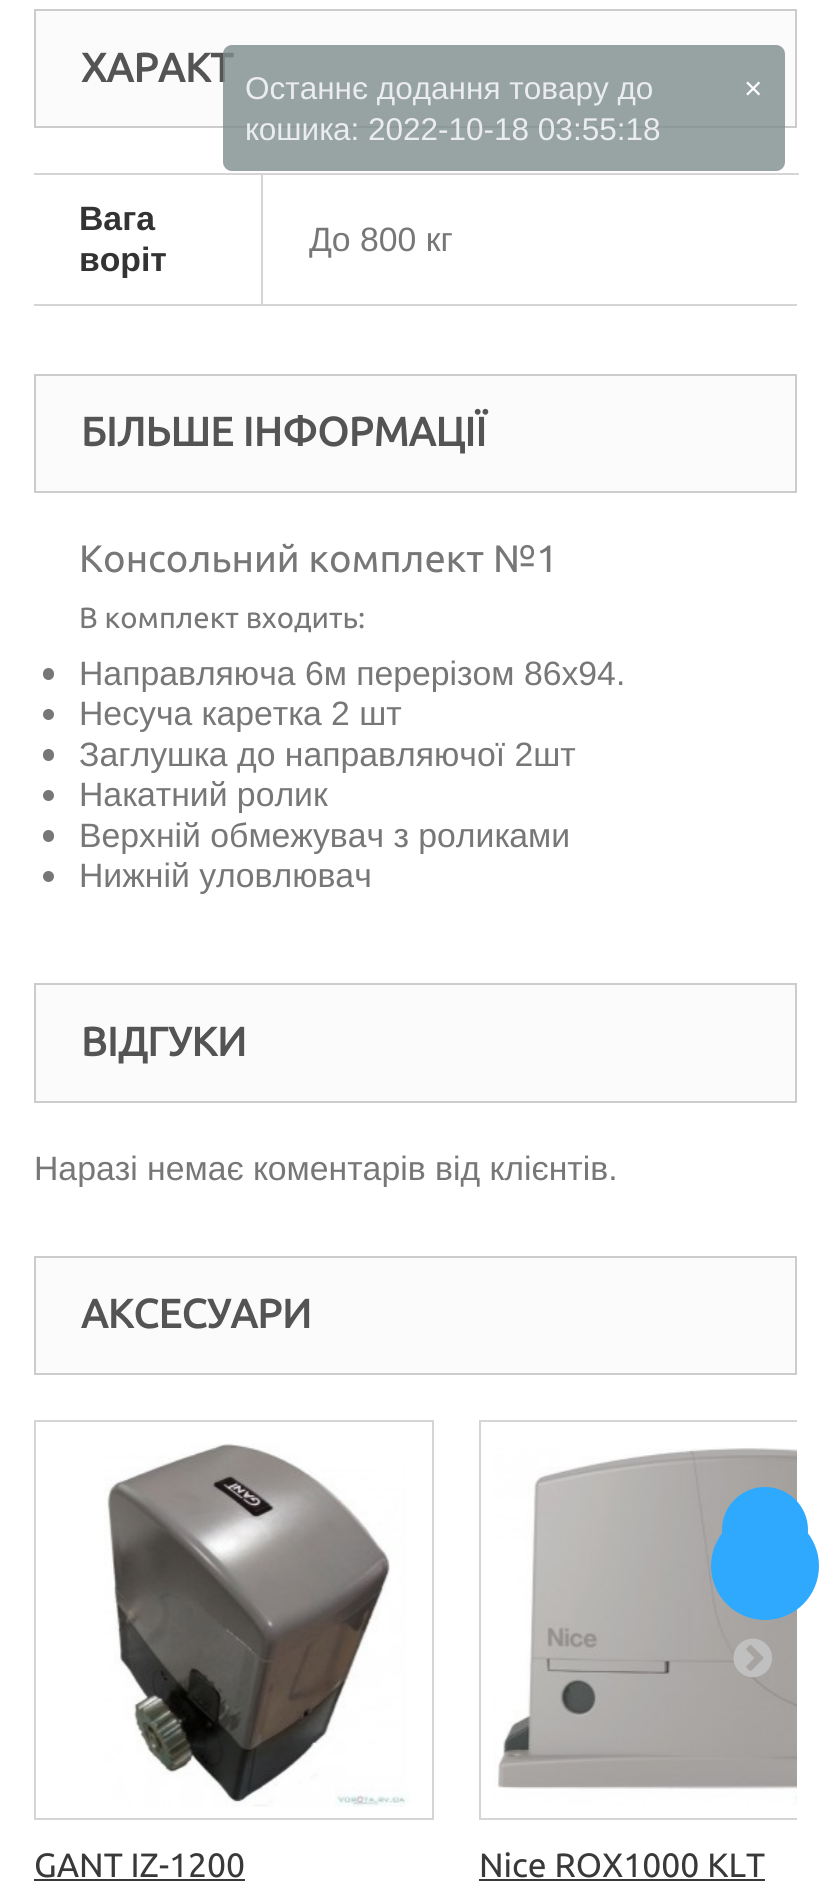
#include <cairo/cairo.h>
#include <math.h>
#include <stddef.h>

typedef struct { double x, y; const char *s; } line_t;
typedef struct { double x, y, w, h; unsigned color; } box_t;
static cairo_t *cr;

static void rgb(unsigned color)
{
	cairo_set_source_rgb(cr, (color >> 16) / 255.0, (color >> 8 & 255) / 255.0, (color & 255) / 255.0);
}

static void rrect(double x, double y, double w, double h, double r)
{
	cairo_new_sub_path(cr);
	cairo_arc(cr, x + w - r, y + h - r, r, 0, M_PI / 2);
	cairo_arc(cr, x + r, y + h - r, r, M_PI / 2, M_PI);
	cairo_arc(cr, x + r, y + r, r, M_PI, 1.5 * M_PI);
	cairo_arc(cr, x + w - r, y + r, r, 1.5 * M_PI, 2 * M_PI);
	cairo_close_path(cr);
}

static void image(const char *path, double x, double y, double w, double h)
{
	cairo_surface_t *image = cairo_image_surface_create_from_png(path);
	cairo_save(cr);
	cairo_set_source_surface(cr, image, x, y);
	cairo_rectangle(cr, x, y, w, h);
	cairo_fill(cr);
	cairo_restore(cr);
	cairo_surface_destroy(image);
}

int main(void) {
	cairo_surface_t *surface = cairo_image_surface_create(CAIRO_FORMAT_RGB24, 830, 1888);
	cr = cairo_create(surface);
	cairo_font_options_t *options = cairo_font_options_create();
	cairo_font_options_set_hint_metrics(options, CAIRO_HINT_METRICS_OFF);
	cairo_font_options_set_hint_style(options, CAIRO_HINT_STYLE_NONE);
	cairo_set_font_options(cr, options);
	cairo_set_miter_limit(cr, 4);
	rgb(0xffffff);
	cairo_paint(cr);
	rgb(0xfbfbfb);
	cairo_rectangle(cr, 35, 10, 761, 117);
	cairo_fill_preserve(cr);
	rgb(0xcccccc);
	cairo_stroke(cr);
	{
		static const box_t items[] = {
			{34, 304, 763, 2, 0xd6d4d4},
			{34, 173, 765, 2, 0xd6d4d4},
			{261, 173, 2, 133, 0xd6d4d4},
		};
		for (size_t i = 0; i < sizeof items / sizeof *items; i++) {
			rgb(items[i].color);
			cairo_rectangle(cr, items[i].x, items[i].y, items[i].w, items[i].h);
			cairo_fill(cr);
		}
	}
	rgb(0xfbfbfb);
	cairo_rectangle(cr, 35, 375, 761, 117);
	cairo_fill_preserve(cr);
	rgb(0xcccccc);
	cairo_stroke(cr);
	rgb(0x777777);
	rrect(43, 668, 11, 12, 5.5);
	cairo_fill(cr);
	cairo_arc(cr, 48.5, 714.5, 5.5, 0, 2 * M_PI);
	cairo_fill(cr);
	rrect(43, 749, 11, 12, 5.5);
	cairo_fill(cr);
	cairo_arc(cr, 48.5, 795.5, 5.5, 0, 2 * M_PI);
	cairo_fill(cr);
	rrect(43, 830, 11, 12, 5.5);
	cairo_fill(cr);
	cairo_arc(cr, 48.5, 876.5, 5.5, 0, 2 * M_PI);
	cairo_fill(cr);
	rgb(0xfbfbfb);
	cairo_rectangle(cr, 35, 984, 761, 118);
	cairo_fill_preserve(cr);
	rgb(0xcccccc);
	cairo_stroke(cr);
	rgb(0xfbfbfb);
	cairo_rectangle(cr, 35, 1257, 761, 117);
	cairo_fill_preserve(cr);
	rgb(0xcccccc);
	cairo_stroke(cr);
	cairo_save(cr);
	cairo_rectangle(cr, 34, 1420, 763, 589);
	cairo_clip(cr);
	cairo_rectangle(cr, 480, 1421, 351, 398);
	rgb(0xd6d4d4);
	cairo_stroke(cr);
	cairo_restore(cr);
	image("img/3.png", 493, 1447, 304, 358);
	image("img/1.png", 733, 1638, 39, 40);
	cairo_rectangle(cr, 35, 1421, 398, 398);
	rgb(0xd6d4d4);
	cairo_stroke(cr);
	image("img/2.png", 104, 1443, 307, 364);
	rgb(0x3a3939);
	cairo_rectangle(cr, 34, 1879, 211, 2);
	cairo_fill(cr);
	cairo_rectangle(cr, 479, 1879, 286, 2);
	cairo_fill(cr);
	rgb(0x2ea9fd);
	cairo_arc(cr, 765, 1530, 43, 0, 2 * M_PI);
	cairo_fill(cr);
	cairo_arc(cr, 765, 1566, 54, 0, 2 * M_PI);
	cairo_fill(cr);
	cairo_select_font_face(cr, "Ubuntu", CAIRO_FONT_SLANT_NORMAL, CAIRO_FONT_WEIGHT_BOLD);
	cairo_set_font_size(cr, 40.5);
	rgb(0x555454);
	cairo_move_to(cr, 81, 82);
	cairo_show_text(cr, "ХАРАКТ");
	cairo_select_font_face(cr, "Liberation Sans", CAIRO_FONT_SLANT_NORMAL, CAIRO_FONT_WEIGHT_BOLD);
	cairo_set_font_size(cr, 33.75);
	rgb(0x333333);
	cairo_move_to(cr, 79, 230);
	cairo_show_text(cr, "Вага");
	cairo_move_to(cr, 79, 271);
	cairo_show_text(cr, "воріт");
	cairo_select_font_face(cr, "Liberation Sans", CAIRO_FONT_SLANT_NORMAL, CAIRO_FONT_WEIGHT_NORMAL);
	rgb(0x777777);
	cairo_move_to(cr, 309, 251);
	cairo_show_text(cr, "До 800 кг");
	cairo_select_font_face(cr, "Ubuntu", CAIRO_FONT_SLANT_NORMAL, CAIRO_FONT_WEIGHT_BOLD);
	cairo_set_font_size(cr, 40.5);
	rgb(0x555454);
	cairo_move_to(cr, 81, 446);
	cairo_show_text(cr, "БІЛЬШЕ ІНФОРМАЦІЇ");
	cairo_select_font_face(cr, "Ubuntu", CAIRO_FONT_SLANT_NORMAL, CAIRO_FONT_WEIGHT_NORMAL);
	cairo_set_font_size(cr, 38.25);
	rgb(0x777777);
	cairo_move_to(cr, 79, 572);
	cairo_show_text(cr, "Консольний комплект №1");
	cairo_set_font_size(cr, 29.25);
	cairo_move_to(cr, 79, 628);
	cairo_show_text(cr, "В комплект входить:");
	cairo_select_font_face(cr, "Liberation Sans", CAIRO_FONT_SLANT_NORMAL, CAIRO_FONT_WEIGHT_NORMAL);
	cairo_set_font_size(cr, 33.75);
	{
		static const line_t items[] = {
			{79, 685, "Направляюча 6м перерізом 86х94."},
			{79, 725, "Несуча каретка 2 шт"},
			{79, 766, "Заглушка до направляючої 2шт"},
			{79, 806, "Накатний ролик"},
			{79, 847, "Верхній обмежувач з роликами"},
			{79, 887, "Нижній уловлювач"},
		};
		for (size_t i = 0; i < sizeof items / sizeof *items; i++) {
			cairo_move_to(cr, items[i].x, items[i].y);
			cairo_show_text(cr, items[i].s);
		}
	}
	cairo_select_font_face(cr, "Ubuntu", CAIRO_FONT_SLANT_NORMAL, CAIRO_FONT_WEIGHT_BOLD);
	cairo_set_font_size(cr, 40.5);
	rgb(0x555454);
	cairo_move_to(cr, 81, 1056);
	cairo_show_text(cr, "ВІДГУКИ");
	cairo_select_font_face(cr, "Liberation Sans", CAIRO_FONT_SLANT_NORMAL, CAIRO_FONT_WEIGHT_NORMAL);
	cairo_set_font_size(cr, 33.75);
	rgb(0x777777);
	cairo_move_to(cr, 34, 1180);
	cairo_show_text(cr, "Наразі немає коментарів від клієнтів.");
	cairo_select_font_face(cr, "Ubuntu", CAIRO_FONT_SLANT_NORMAL, CAIRO_FONT_WEIGHT_BOLD);
	cairo_set_font_size(cr, 40.5);
	rgb(0x555454);
	cairo_move_to(cr, 81, 1328);
	cairo_show_text(cr, "АКСЕСУАРИ");
	cairo_select_font_face(cr, "Ubuntu", CAIRO_FONT_SLANT_NORMAL, CAIRO_FONT_WEIGHT_NORMAL);
	cairo_set_font_size(cr, 33.75);
	rgb(0x3a3939);
	cairo_move_to(cr, 34, 1877);
	cairo_show_text(cr, "GANT IZ-1200");
	cairo_move_to(cr, 479, 1877);
	cairo_show_text(cr, "Nice ROX1000 KLT");
	cairo_set_source_rgba(cr, 0.498, 0.549, 0.553, 0.8);
	rrect(223, 45, 562, 126, 9);
	cairo_fill(cr);
	cairo_select_font_face(cr, "Liberation Sans", CAIRO_FONT_SLANT_NORMAL, CAIRO_FONT_WEIGHT_NORMAL);
	cairo_set_font_size(cr, 31.5);
	rgb(0xeaeced);
	cairo_move_to(cr, 245, 99);
	cairo_show_text(cr, "Останнє додання товару до");
	cairo_move_to(cr, 245, 140);
	cairo_show_text(cr, "кошика: 2022-10-18 03:55:18");
	rgb(0xfefefe);
	cairo_move_to(cr, 744, 99);
	cairo_show_text(cr, "×");
	cairo_surface_write_to_png(surface, "page.png");
	cairo_font_options_destroy(options);
	cairo_destroy(cr);
	cairo_surface_destroy(surface);
	return 0;
}
